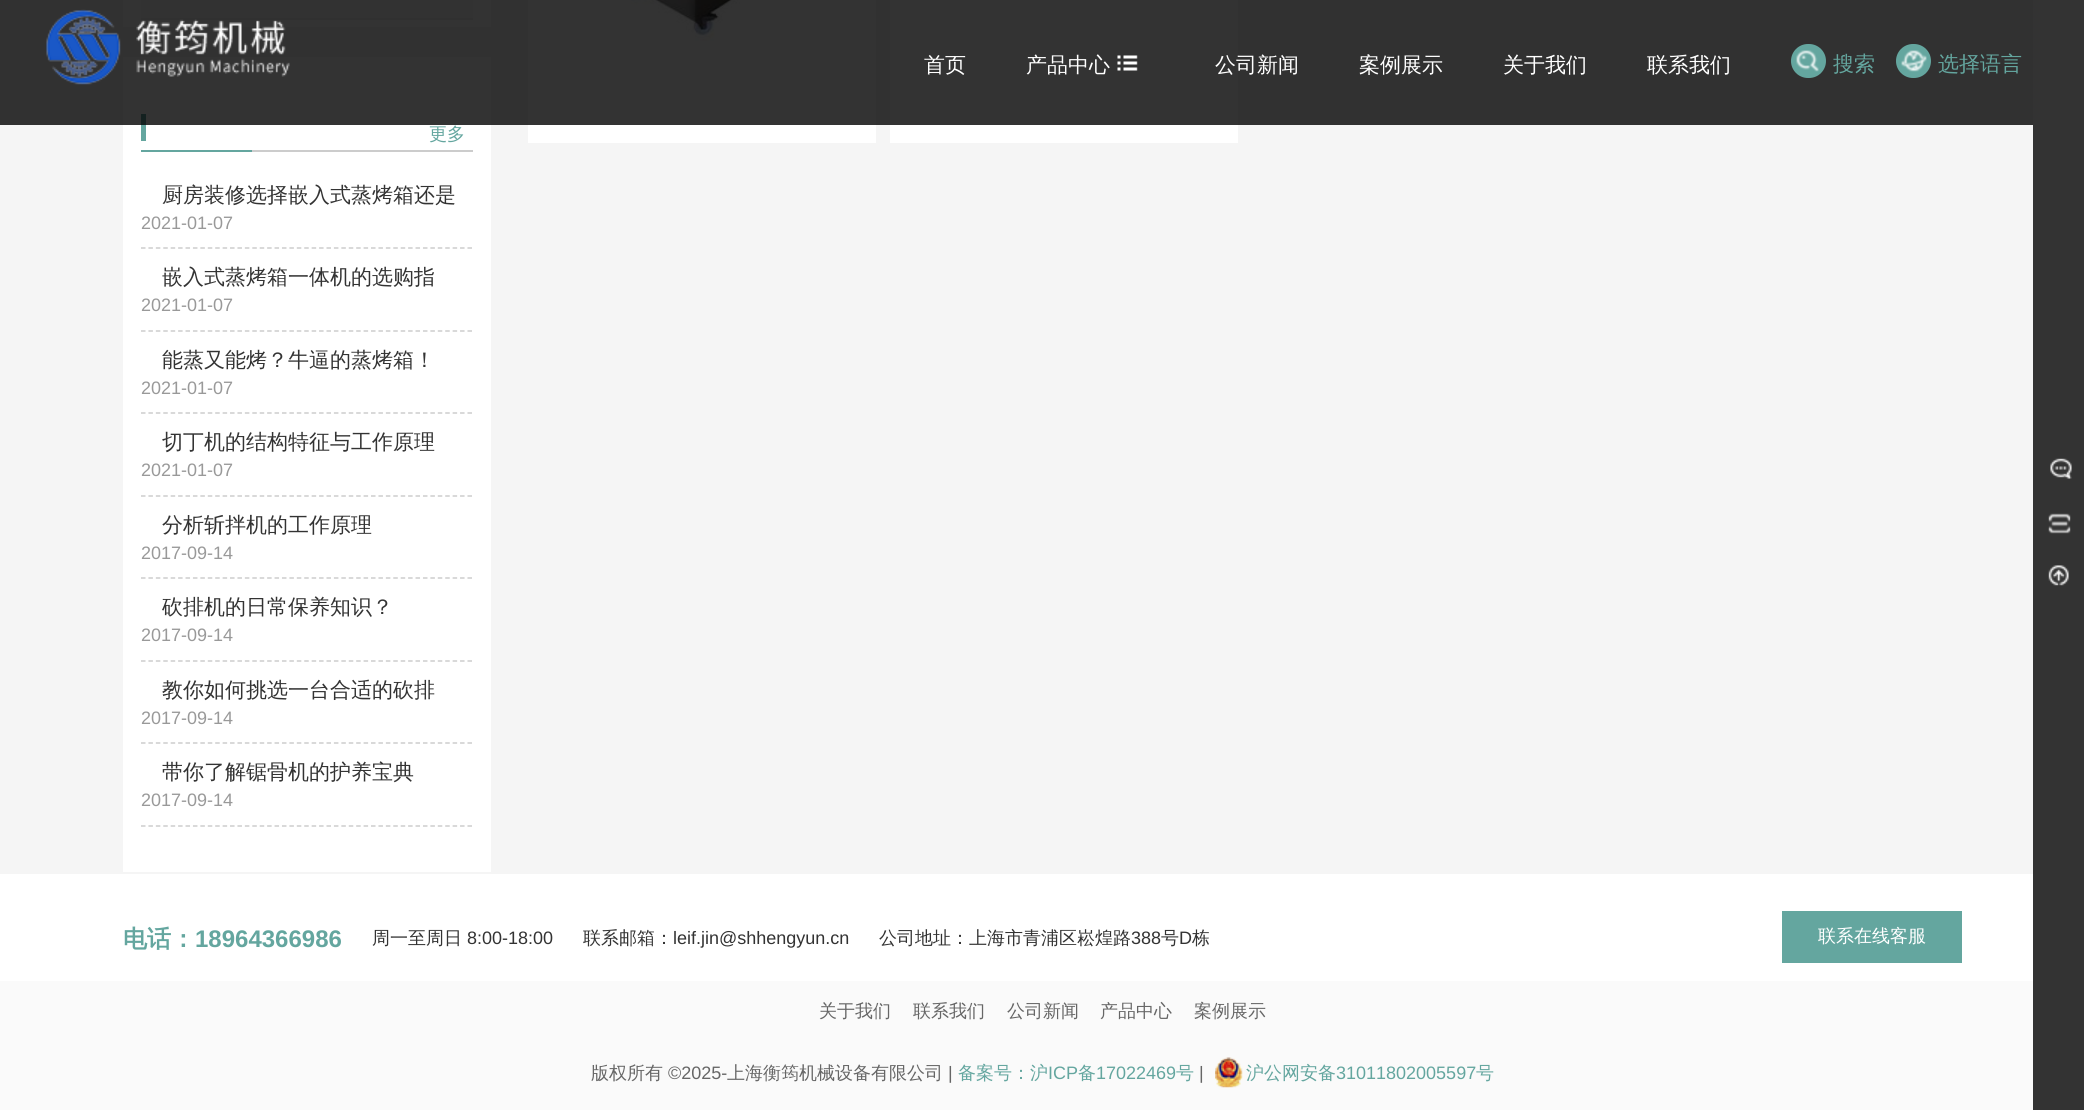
#include <cairo/cairo.h>
#include <math.h>
#include <stddef.h>

typedef struct { double x, y; const char *s; } line_t;
typedef struct { double x, y, w, h; unsigned color; } box_t;
static cairo_t *cr;

static void rgb(unsigned color)
{
	cairo_set_source_rgb(cr, (color >> 16) / 255.0, (color >> 8 & 255) / 255.0, (color & 255) / 255.0);
}

static void rrect(double x, double y, double w, double h, double r)
{
	cairo_new_sub_path(cr);
	cairo_arc(cr, x + w - r, y + h - r, r, 0, M_PI / 2);
	cairo_arc(cr, x + r, y + h - r, r, M_PI / 2, M_PI);
	cairo_arc(cr, x + r, y + r, r, M_PI, 1.5 * M_PI);
	cairo_arc(cr, x + w - r, y + r, r, 1.5 * M_PI, 2 * M_PI);
	cairo_close_path(cr);
}

static void image(const char *path, double x, double y, double w, double h)
{
	cairo_surface_t *image = cairo_image_surface_create_from_png(path);
	cairo_save(cr);
	cairo_set_source_surface(cr, image, x, y);
	cairo_rectangle(cr, x, y, w, h);
	cairo_fill(cr);
	cairo_restore(cr);
	cairo_surface_destroy(image);
}

int main(void) {
	cairo_surface_t *surface = cairo_image_surface_create(CAIRO_FORMAT_RGB24, 2084, 1110);
	cr = cairo_create(surface);
	cairo_font_options_t *options = cairo_font_options_create();
	cairo_font_options_set_hint_metrics(options, CAIRO_HINT_METRICS_OFF);
	cairo_font_options_set_hint_style(options, CAIRO_HINT_STYLE_NONE);
	cairo_set_font_options(cr, options);
	cairo_set_miter_limit(cr, 4);
	rgb(0xf5f5f5);
	cairo_paint(cr);
	rgb(0xffffff);
	cairo_rectangle(cr, 528, 0, 348, 143);
	cairo_fill(cr);
	image("img/8.png", 631, 0, 109, 41);
	cairo_rectangle(cr, 890, 0, 348, 143);
	cairo_fill(cr);
	cairo_rectangle(cr, 123, 0, 368, 27);
	cairo_fill(cr);
	rgb(0xfafafa);
	cairo_rectangle(cr, 141, 0, 332, 18);
	cairo_fill(cr);
	rgb(0xefefef);
	cairo_rectangle(cr, 141, 18, 332, 2);
	cairo_fill(cr);
	rgb(0xffffff);
	cairo_rectangle(cr, 123, 57, 368, 815);
	cairo_fill(cr);
	rgb(0x64a69f);
	cairo_rectangle(cr, 141, 114, 5, 27);
	cairo_fill(cr);
	cairo_set_source_rgba(cr, 0, 0, 0, 0.8);
	cairo_rectangle(cr, 0, 0, 2033, 125);
	cairo_fill(cr);
	image("img/1.png", 46, 9, 244, 76);
	image("img/2.png", 1117, 55, 21, 16);
	rgb(0x64a69f);
	rrect(1791, 44, 35, 34, 17);
	cairo_fill(cr);
	image("img/3.png", 1796, 50, 23, 22);
	rrect(1896, 44, 35, 34, 17);
	cairo_fill(cr);
	image("img/4.png", 1901, 50, 26, 22);
	rgb(0x333333);
	cairo_rectangle(cr, 2033, 0, 51, 1110);
	cairo_fill(cr);
	image("img/5.png", 2050, 458, 22, 21);
	image("img/6.png", 2048, 513, 23, 21);
	image("img/7.png", 2048, 565, 21, 21);
	rgb(0xcccccc);
	cairo_rectangle(cr, 252, 150, 221, 2);
	cairo_fill(cr);
	rgb(0x64a69f);
	cairo_rectangle(cr, 141, 150, 111, 2);
	cairo_fill(cr);
	cairo_new_path(cr);
	cairo_move_to(cr, 141, 248);
	cairo_line_to(cr, 472.5, 248);
	rgb(0xcccccc);
	cairo_set_line_width(cr, 1.5);
	cairo_set_dash(cr, (double[]){4.5, 2.92}, 2, 0);
	cairo_stroke(cr);
	cairo_new_path(cr);
	cairo_move_to(cr, 141, 331);
	cairo_line_to(cr, 472.5, 331);
	cairo_stroke(cr);
	cairo_new_path(cr);
	cairo_move_to(cr, 141, 413);
	cairo_line_to(cr, 472.5, 413);
	cairo_stroke(cr);
	cairo_new_path(cr);
	cairo_move_to(cr, 141, 496);
	cairo_line_to(cr, 472.5, 496);
	cairo_stroke(cr);
	cairo_new_path(cr);
	cairo_move_to(cr, 141, 578);
	cairo_line_to(cr, 472.5, 578);
	cairo_stroke(cr);
	cairo_new_path(cr);
	cairo_move_to(cr, 141, 661);
	cairo_line_to(cr, 472.5, 661);
	cairo_stroke(cr);
	cairo_new_path(cr);
	cairo_move_to(cr, 141, 743);
	cairo_line_to(cr, 472.5, 743);
	cairo_stroke(cr);
	cairo_new_path(cr);
	cairo_move_to(cr, 141, 826);
	cairo_line_to(cr, 472.5, 826);
	cairo_stroke(cr);
	{
		static const box_t items[] = {
			{0, 874, 2033, 107, 0xffffff},
			{1782, 911, 180, 52, 0x64a69f},
			{0, 981, 2033, 129, 0xfafafa},
		};
		for (size_t i = 0; i < sizeof items / sizeof *items; i++) {
			rgb(items[i].color);
			cairo_rectangle(cr, items[i].x, items[i].y, items[i].w, items[i].h);
			cairo_fill(cr);
		}
	}
	image("img/9.png", 1215, 1057, 28, 31);
	cairo_select_font_face(cr, "WenQuanYi Zen Hei Medium", CAIRO_FONT_SLANT_NORMAL, CAIRO_FONT_WEIGHT_NORMAL);
	cairo_set_font_size(cr, 21);
	rgb(0xffffff);
	{
		static const line_t items[] = {
			{924, 72, "首页"},
			{1026, 72, "产品中心"},
			{1215, 72, "公司新闻"},
			{1359, 72, "案例展示"},
			{1503, 72, "关于我们"},
			{1647, 72, "联系我们"},
		};
		for (size_t i = 0; i < sizeof items / sizeof *items; i++) {
			cairo_move_to(cr, items[i].x, items[i].y);
			cairo_show_text(cr, items[i].s);
		}
	}
	rgb(0x64a69f);
	cairo_move_to(cr, 1833, 71);
	cairo_show_text(cr, "搜索");
	cairo_move_to(cr, 1938, 71);
	cairo_show_text(cr, "选择语言");
	cairo_set_font_size(cr, 18);
	cairo_move_to(cr, 429, 140);
	cairo_show_text(cr, "更多");
	cairo_set_font_size(cr, 21);
	rgb(0x333333);
	cairo_move_to(cr, 162, 202);
	cairo_show_text(cr, "厨房装修选择嵌入式蒸烤箱还是");
	cairo_select_font_face(cr, "Liberation Sans", CAIRO_FONT_SLANT_NORMAL, CAIRO_FONT_WEIGHT_NORMAL);
	cairo_set_font_size(cr, 18);
	rgb(0x999999);
	cairo_move_to(cr, 141, 229);
	cairo_show_text(cr, "2021-01-07");
	cairo_select_font_face(cr, "WenQuanYi Zen Hei Medium", CAIRO_FONT_SLANT_NORMAL, CAIRO_FONT_WEIGHT_NORMAL);
	cairo_set_font_size(cr, 21);
	rgb(0x333333);
	cairo_move_to(cr, 162, 284);
	cairo_show_text(cr, "嵌入式蒸烤箱一体机的选购指");
	cairo_select_font_face(cr, "Liberation Sans", CAIRO_FONT_SLANT_NORMAL, CAIRO_FONT_WEIGHT_NORMAL);
	cairo_set_font_size(cr, 18);
	rgb(0x999999);
	cairo_move_to(cr, 141, 311);
	cairo_show_text(cr, "2021-01-07");
	cairo_select_font_face(cr, "WenQuanYi Zen Hei Medium", CAIRO_FONT_SLANT_NORMAL, CAIRO_FONT_WEIGHT_NORMAL);
	cairo_set_font_size(cr, 21);
	rgb(0x333333);
	cairo_move_to(cr, 162, 367);
	cairo_show_text(cr, "能蒸又能烤？牛逼的蒸烤箱！");
	cairo_select_font_face(cr, "Liberation Sans", CAIRO_FONT_SLANT_NORMAL, CAIRO_FONT_WEIGHT_NORMAL);
	cairo_set_font_size(cr, 18);
	rgb(0x999999);
	cairo_move_to(cr, 141, 394);
	cairo_show_text(cr, "2021-01-07");
	cairo_select_font_face(cr, "WenQuanYi Zen Hei Medium", CAIRO_FONT_SLANT_NORMAL, CAIRO_FONT_WEIGHT_NORMAL);
	cairo_set_font_size(cr, 21);
	rgb(0x333333);
	cairo_move_to(cr, 162, 449);
	cairo_show_text(cr, "切丁机的结构特征与工作原理");
	cairo_select_font_face(cr, "Liberation Sans", CAIRO_FONT_SLANT_NORMAL, CAIRO_FONT_WEIGHT_NORMAL);
	cairo_set_font_size(cr, 18);
	rgb(0x999999);
	cairo_move_to(cr, 141, 476);
	cairo_show_text(cr, "2021-01-07");
	cairo_select_font_face(cr, "WenQuanYi Zen Hei Medium", CAIRO_FONT_SLANT_NORMAL, CAIRO_FONT_WEIGHT_NORMAL);
	cairo_set_font_size(cr, 21);
	rgb(0x333333);
	cairo_move_to(cr, 162, 532);
	cairo_show_text(cr, "分析斩拌机的工作原理");
	cairo_select_font_face(cr, "Liberation Sans", CAIRO_FONT_SLANT_NORMAL, CAIRO_FONT_WEIGHT_NORMAL);
	cairo_set_font_size(cr, 18);
	rgb(0x999999);
	cairo_move_to(cr, 141, 559);
	cairo_show_text(cr, "2017-09-14");
	cairo_select_font_face(cr, "WenQuanYi Zen Hei Medium", CAIRO_FONT_SLANT_NORMAL, CAIRO_FONT_WEIGHT_NORMAL);
	cairo_set_font_size(cr, 21);
	rgb(0x333333);
	cairo_move_to(cr, 162, 614);
	cairo_show_text(cr, "砍排机的日常保养知识？");
	cairo_select_font_face(cr, "Liberation Sans", CAIRO_FONT_SLANT_NORMAL, CAIRO_FONT_WEIGHT_NORMAL);
	cairo_set_font_size(cr, 18);
	rgb(0x999999);
	cairo_move_to(cr, 141, 641);
	cairo_show_text(cr, "2017-09-14");
	cairo_select_font_face(cr, "WenQuanYi Zen Hei Medium", CAIRO_FONT_SLANT_NORMAL, CAIRO_FONT_WEIGHT_NORMAL);
	cairo_set_font_size(cr, 21);
	rgb(0x333333);
	cairo_move_to(cr, 162, 697);
	cairo_show_text(cr, "教你如何挑选一台合适的砍排");
	cairo_select_font_face(cr, "Liberation Sans", CAIRO_FONT_SLANT_NORMAL, CAIRO_FONT_WEIGHT_NORMAL);
	cairo_set_font_size(cr, 18);
	rgb(0x999999);
	cairo_move_to(cr, 141, 724);
	cairo_show_text(cr, "2017-09-14");
	cairo_select_font_face(cr, "WenQuanYi Zen Hei Medium", CAIRO_FONT_SLANT_NORMAL, CAIRO_FONT_WEIGHT_NORMAL);
	cairo_set_font_size(cr, 21);
	rgb(0x333333);
	cairo_move_to(cr, 162, 779);
	cairo_show_text(cr, "带你了解锯骨机的护养宝典");
	cairo_select_font_face(cr, "Liberation Sans", CAIRO_FONT_SLANT_NORMAL, CAIRO_FONT_WEIGHT_NORMAL);
	cairo_set_font_size(cr, 18);
	rgb(0x999999);
	cairo_move_to(cr, 141, 806);
	cairo_show_text(cr, "2017-09-14");
	cairo_select_font_face(cr, "WenQuanYi Zen Hei", CAIRO_FONT_SLANT_NORMAL, CAIRO_FONT_WEIGHT_BOLD);
	cairo_set_font_size(cr, 24);
	rgb(0x64a69f);
	cairo_move_to(cr, 123, 947);
	cairo_show_text(cr, "电话：");
	cairo_select_font_face(cr, "Liberation Sans", CAIRO_FONT_SLANT_NORMAL, CAIRO_FONT_WEIGHT_BOLD);
	cairo_move_to(cr, 195, 947);
	cairo_show_text(cr, "18964366986");
	cairo_select_font_face(cr, "WenQuanYi Zen Hei Medium", CAIRO_FONT_SLANT_NORMAL, CAIRO_FONT_WEIGHT_NORMAL);
	cairo_set_font_size(cr, 18);
	rgb(0x333333);
	cairo_move_to(cr, 372, 944);
	cairo_show_text(cr, "周一至周日");
	cairo_select_font_face(cr, "Liberation Sans", CAIRO_FONT_SLANT_NORMAL, CAIRO_FONT_WEIGHT_NORMAL);
	cairo_move_to(cr, 467, 944);
	cairo_show_text(cr, "8:00-18:00");
	cairo_select_font_face(cr, "WenQuanYi Zen Hei Medium", CAIRO_FONT_SLANT_NORMAL, CAIRO_FONT_WEIGHT_NORMAL);
	cairo_move_to(cr, 583, 944);
	cairo_show_text(cr, "联系邮箱：");
	cairo_select_font_face(cr, "Liberation Sans", CAIRO_FONT_SLANT_NORMAL, CAIRO_FONT_WEIGHT_NORMAL);
	cairo_move_to(cr, 673, 944);
	cairo_show_text(cr, "leif.jin@shhengyun.cn");
	cairo_select_font_face(cr, "WenQuanYi Zen Hei Medium", CAIRO_FONT_SLANT_NORMAL, CAIRO_FONT_WEIGHT_NORMAL);
	cairo_move_to(cr, 879, 944);
	cairo_show_text(cr, "公司地址：上海市青浦区崧煌路");
	cairo_select_font_face(cr, "Liberation Sans", CAIRO_FONT_SLANT_NORMAL, CAIRO_FONT_WEIGHT_NORMAL);
	cairo_move_to(cr, 1131, 944);
	cairo_show_text(cr, "388");
	cairo_select_font_face(cr, "WenQuanYi Zen Hei Medium", CAIRO_FONT_SLANT_NORMAL, CAIRO_FONT_WEIGHT_NORMAL);
	cairo_move_to(cr, 1161, 944);
	cairo_show_text(cr, "号");
	cairo_select_font_face(cr, "Liberation Sans", CAIRO_FONT_SLANT_NORMAL, CAIRO_FONT_WEIGHT_NORMAL);
	cairo_move_to(cr, 1179, 944);
	cairo_show_text(cr, "D");
	cairo_select_font_face(cr, "WenQuanYi Zen Hei Medium", CAIRO_FONT_SLANT_NORMAL, CAIRO_FONT_WEIGHT_NORMAL);
	cairo_move_to(cr, 1192, 944);
	cairo_show_text(cr, "栋");
	rgb(0xffffff);
	cairo_move_to(cr, 1818, 942);
	cairo_show_text(cr, "联系在线客服");
	rgb(0x666666);
	{
		static const line_t items[] = {
			{819, 1017, "关于我们"},
			{913, 1017, "联系我们"},
			{1007, 1017, "公司新闻"},
			{1100, 1017, "产品中心"},
			{1194, 1017, "案例展示"},
			{591, 1079, "版权所有"},
		};
		for (size_t i = 0; i < sizeof items / sizeof *items; i++) {
			cairo_move_to(cr, items[i].x, items[i].y);
			cairo_show_text(cr, items[i].s);
		}
	}
	cairo_select_font_face(cr, "Liberation Sans", CAIRO_FONT_SLANT_NORMAL, CAIRO_FONT_WEIGHT_NORMAL);
	cairo_move_to(cr, 668, 1079);
	cairo_show_text(cr, "©2025-");
	cairo_select_font_face(cr, "WenQuanYi Zen Hei Medium", CAIRO_FONT_SLANT_NORMAL, CAIRO_FONT_WEIGHT_NORMAL);
	cairo_move_to(cr, 727, 1079);
	cairo_show_text(cr, "上海衡筠机械设备有限公司");
	cairo_select_font_face(cr, "Liberation Sans", CAIRO_FONT_SLANT_NORMAL, CAIRO_FONT_WEIGHT_NORMAL);
	cairo_move_to(cr, 948, 1079);
	cairo_show_text(cr, "|");
	cairo_select_font_face(cr, "WenQuanYi Zen Hei Medium", CAIRO_FONT_SLANT_NORMAL, CAIRO_FONT_WEIGHT_NORMAL);
	rgb(0x64a69f);
	cairo_move_to(cr, 958, 1079);
	cairo_show_text(cr, "备案号：沪");
	cairo_select_font_face(cr, "Liberation Sans", CAIRO_FONT_SLANT_NORMAL, CAIRO_FONT_WEIGHT_NORMAL);
	cairo_move_to(cr, 1048, 1079);
	cairo_show_text(cr, "ICP");
	cairo_select_font_face(cr, "WenQuanYi Zen Hei Medium", CAIRO_FONT_SLANT_NORMAL, CAIRO_FONT_WEIGHT_NORMAL);
	cairo_move_to(cr, 1078, 1079);
	cairo_show_text(cr, "备");
	cairo_select_font_face(cr, "Liberation Sans", CAIRO_FONT_SLANT_NORMAL, CAIRO_FONT_WEIGHT_NORMAL);
	cairo_move_to(cr, 1096, 1079);
	cairo_show_text(cr, "17022469");
	cairo_select_font_face(cr, "WenQuanYi Zen Hei Medium", CAIRO_FONT_SLANT_NORMAL, CAIRO_FONT_WEIGHT_NORMAL);
	cairo_move_to(cr, 1176, 1079);
	cairo_show_text(cr, "号");
	cairo_select_font_face(cr, "Liberation Sans", CAIRO_FONT_SLANT_NORMAL, CAIRO_FONT_WEIGHT_NORMAL);
	rgb(0x666666);
	cairo_move_to(cr, 1199, 1079);
	cairo_show_text(cr, "|");
	cairo_select_font_face(cr, "WenQuanYi Zen Hei Medium", CAIRO_FONT_SLANT_NORMAL, CAIRO_FONT_WEIGHT_NORMAL);
	rgb(0x64a69f);
	cairo_move_to(cr, 1246, 1079);
	cairo_show_text(cr, "沪公网安备");
	cairo_select_font_face(cr, "Liberation Sans", CAIRO_FONT_SLANT_NORMAL, CAIRO_FONT_WEIGHT_NORMAL);
	cairo_move_to(cr, 1336, 1079);
	cairo_show_text(cr, "31011802005597");
	cairo_select_font_face(cr, "WenQuanYi Zen Hei Medium", CAIRO_FONT_SLANT_NORMAL, CAIRO_FONT_WEIGHT_NORMAL);
	cairo_move_to(cr, 1476, 1079);
	cairo_show_text(cr, "号");
	cairo_surface_write_to_png(surface, "page.png");
	cairo_font_options_destroy(options);
	cairo_destroy(cr);
	cairo_surface_destroy(surface);
	return 0;
}
